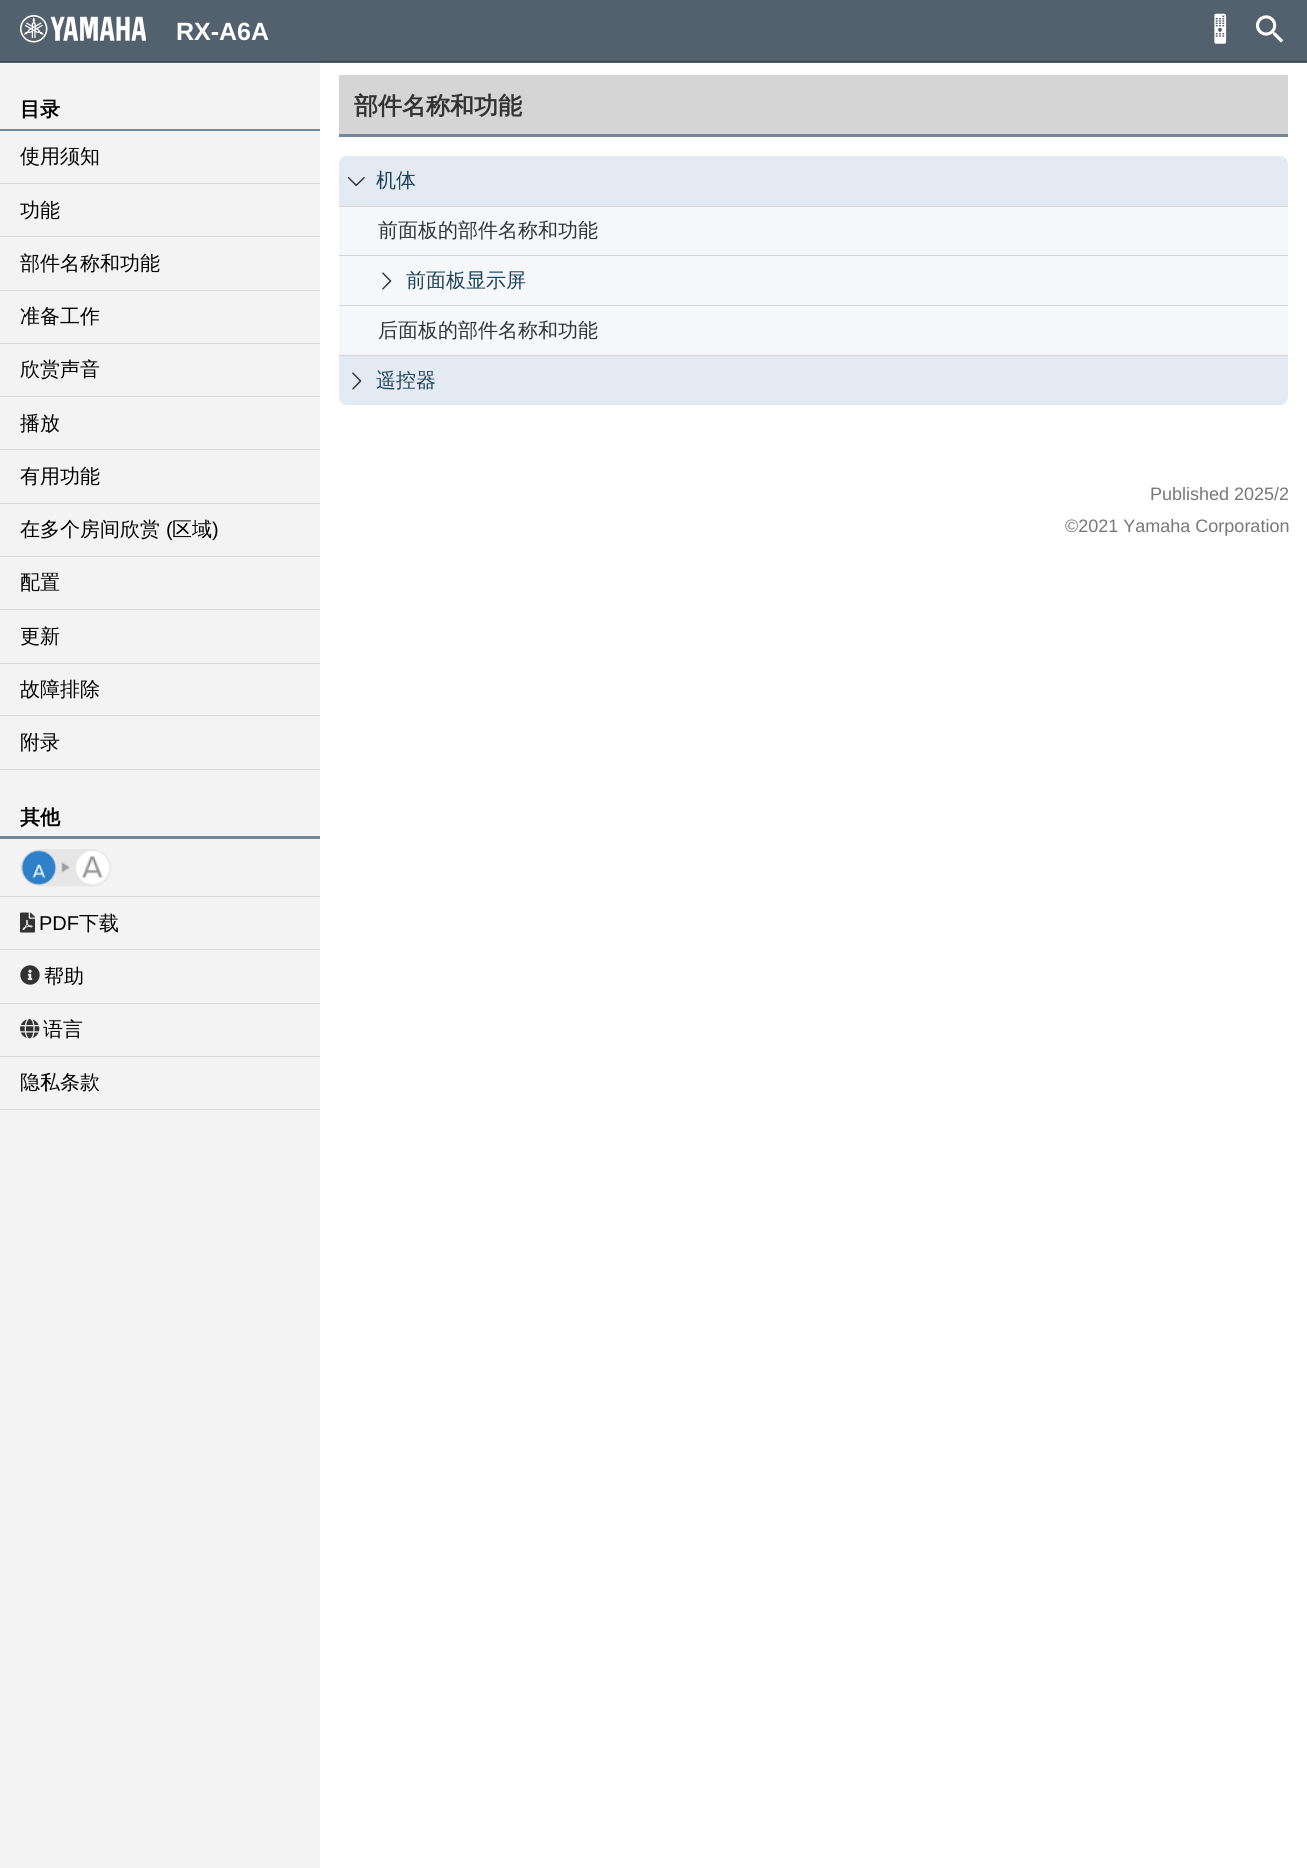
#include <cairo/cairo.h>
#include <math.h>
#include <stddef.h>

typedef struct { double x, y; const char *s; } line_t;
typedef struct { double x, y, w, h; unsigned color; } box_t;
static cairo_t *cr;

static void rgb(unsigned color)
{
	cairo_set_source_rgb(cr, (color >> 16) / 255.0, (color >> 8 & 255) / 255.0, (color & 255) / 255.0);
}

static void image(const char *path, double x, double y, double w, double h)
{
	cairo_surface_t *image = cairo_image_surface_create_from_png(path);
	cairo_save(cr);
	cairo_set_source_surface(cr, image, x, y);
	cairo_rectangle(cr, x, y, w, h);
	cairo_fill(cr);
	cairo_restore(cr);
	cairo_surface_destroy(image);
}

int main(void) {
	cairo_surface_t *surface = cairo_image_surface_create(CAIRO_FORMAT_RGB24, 1307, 1868);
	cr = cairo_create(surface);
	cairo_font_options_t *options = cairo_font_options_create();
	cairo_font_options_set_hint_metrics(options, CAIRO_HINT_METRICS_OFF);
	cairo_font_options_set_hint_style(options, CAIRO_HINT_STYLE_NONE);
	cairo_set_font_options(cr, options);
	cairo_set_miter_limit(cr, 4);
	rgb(0xffffff);
	cairo_paint(cr);
	{
		static const box_t items[] = {
			{0, 63, 320, 1805, 0xf3f3f4},
			{0, 129, 320, 2, 0x75879b},
			{0, 183, 320, 1, 0xd9d9d9},
			{0, 236, 320, 1, 0xd9d9d9},
			{0, 290, 320, 1, 0xd9d9d9},
			{0, 343, 320, 1, 0xd9d9d9},
			{0, 396, 320, 1, 0xd9d9d9},
			{0, 449, 320, 1, 0xd9d9d9},
			{0, 503, 320, 1, 0xd9d9d9},
			{0, 556, 320, 1, 0xd9d9d9},
			{0, 609, 320, 1, 0xd9d9d9},
			{0, 663, 320, 1, 0xd9d9d9},
			{0, 715, 320, 1, 0xd9d9d9},
			{0, 769, 320, 1, 0xd9d9d9},
			{0, 836, 320, 3, 0x75879b},
			{0, 896, 320, 1, 0xd9d9d9},
		};
		for (size_t i = 0; i < sizeof items / sizeof *items; i++) {
			rgb(items[i].color);
			cairo_rectangle(cr, items[i].x, items[i].y, items[i].w, items[i].h);
			cairo_fill(cr);
		}
	}
	image("img/1.png", 20, 849, 92, 38);
	cairo_rectangle(cr, 0, 949, 320, 1);
	cairo_fill(cr);
	image("img/2.png", 20, 912, 15, 21);
	cairo_rectangle(cr, 0, 1003, 320, 1);
	cairo_fill(cr);
	image("img/3.png", 20, 965, 20, 20);
	cairo_rectangle(cr, 0, 1056, 320, 1);
	cairo_fill(cr);
	image("img/4.png", 20, 1019, 20, 20);
	{
		static const box_t items[] = {
			{0, 1109, 320, 1, 0xd9d9d9},
			{0, 0, 1307, 63, 0x53606d},
			{0, 61, 1307, 1, 0x3a4651},
		};
		for (size_t i = 0; i < sizeof items / sizeof *items; i++) {
			rgb(items[i].color);
			cairo_rectangle(cr, items[i].x, items[i].y, items[i].w, items[i].h);
			cairo_fill(cr);
		}
	}
	image("img/5.png", 20, 15, 126, 28);
	image("img/6.png", 1214, 13, 13, 31);
	image("img/7.png", 1255, 15, 29, 28);
	rgb(0xd5d5d5);
	cairo_rectangle(cr, 339, 75, 949, 59);
	cairo_fill(cr);
	rgb(0x75879b);
	cairo_rectangle(cr, 339, 134, 949, 3);
	cairo_fill(cr);
	rgb(0xf5f7fa);
	cairo_new_path(cr);
	cairo_move_to(cr, 347, 156);
	cairo_line_to(cr, 1280, 156);
	cairo_curve_to(cr, 1284.5, 156, 1288, 159.5, 1288, 164);
	cairo_line_to(cr, 1288, 355);
	cairo_line_to(cr, 339, 355);
	cairo_line_to(cr, 339, 164);
	cairo_curve_to(cr, 339, 159.5, 342.5, 156, 347, 156);
	cairo_close_path(cr);
	cairo_fill(cr);
	rgb(0xe4eaf3);
	cairo_new_path(cr);
	cairo_move_to(cr, 347, 156);
	cairo_line_to(cr, 1280, 156);
	cairo_curve_to(cr, 1284.5, 156, 1288, 159.5, 1288, 164);
	cairo_line_to(cr, 1288, 206);
	cairo_line_to(cr, 339, 206);
	cairo_line_to(cr, 339, 164);
	cairo_curve_to(cr, 339, 159.5, 342.5, 156, 347, 156);
	cairo_close_path(cr);
	cairo_fill(cr);
	image("img/8.png", 347, 177, 18, 10);
	rgb(0xd5d5d5);
	cairo_rectangle(cr, 339, 206, 949, 1);
	cairo_fill(cr);
	cairo_rectangle(cr, 339, 255, 949, 1);
	cairo_fill(cr);
	image("img/9.png", 382, 272, 10, 18);
	cairo_rectangle(cr, 339, 305, 949, 1);
	cairo_fill(cr);
	cairo_rectangle(cr, 339, 355, 949, 1);
	cairo_fill(cr);
	rgb(0xe4eaf3);
	cairo_new_path(cr);
	cairo_move_to(cr, 339, 356);
	cairo_line_to(cr, 1288, 356);
	cairo_line_to(cr, 1288, 397);
	cairo_curve_to(cr, 1288, 401.5, 1284.5, 405, 1280, 405);
	cairo_line_to(cr, 347, 405);
	cairo_curve_to(cr, 342.5, 405, 339, 401.5, 339, 397);
	cairo_close_path(cr);
	cairo_fill(cr);
	image("img/10.png", 352, 372, 10, 18);
	cairo_select_font_face(cr, "WenQuanYi Zen Hei", CAIRO_FONT_SLANT_NORMAL, CAIRO_FONT_WEIGHT_BOLD);
	cairo_set_font_size(cr, 20);
	rgb(0x000000);
	cairo_move_to(cr, 20, 116);
	cairo_show_text(cr, "目录");
	cairo_select_font_face(cr, "WenQuanYi Zen Hei Medium", CAIRO_FONT_SLANT_NORMAL, CAIRO_FONT_WEIGHT_NORMAL);
	{
		static const line_t items[] = {
			{20, 163, "使用须知"},
			{20, 217, "功能"},
			{20, 270, "部件名称和功能"},
			{20, 323, "准备工作"},
			{20, 376, "欣赏声音"},
			{20, 430, "播放"},
			{20, 483, "有用功能"},
			{20, 536, "在多个房间欣赏"},
		};
		for (size_t i = 0; i < sizeof items / sizeof *items; i++) {
			cairo_move_to(cr, items[i].x, items[i].y);
			cairo_show_text(cr, items[i].s);
		}
	}
	cairo_select_font_face(cr, "Liberation Sans", CAIRO_FONT_SLANT_NORMAL, CAIRO_FONT_WEIGHT_NORMAL);
	cairo_move_to(cr, 166, 536);
	cairo_show_text(cr, "(");
	cairo_select_font_face(cr, "WenQuanYi Zen Hei Medium", CAIRO_FONT_SLANT_NORMAL, CAIRO_FONT_WEIGHT_NORMAL);
	cairo_move_to(cr, 172, 536);
	cairo_show_text(cr, "区域");
	cairo_select_font_face(cr, "Liberation Sans", CAIRO_FONT_SLANT_NORMAL, CAIRO_FONT_WEIGHT_NORMAL);
	cairo_move_to(cr, 212, 536);
	cairo_show_text(cr, ")");
	cairo_select_font_face(cr, "WenQuanYi Zen Hei Medium", CAIRO_FONT_SLANT_NORMAL, CAIRO_FONT_WEIGHT_NORMAL);
	{
		static const line_t items[] = {
			{20, 589, "配置"},
			{20, 643, "更新"},
			{20, 696, "故障排除"},
			{20, 749, "附录"},
		};
		for (size_t i = 0; i < sizeof items / sizeof *items; i++) {
			cairo_move_to(cr, items[i].x, items[i].y);
			cairo_show_text(cr, items[i].s);
		}
	}
	cairo_select_font_face(cr, "WenQuanYi Zen Hei", CAIRO_FONT_SLANT_NORMAL, CAIRO_FONT_WEIGHT_BOLD);
	cairo_move_to(cr, 20, 824);
	cairo_show_text(cr, "其他");
	cairo_select_font_face(cr, "Liberation Sans", CAIRO_FONT_SLANT_NORMAL, CAIRO_FONT_WEIGHT_NORMAL);
	cairo_move_to(cr, 39, 930);
	cairo_show_text(cr, "PDF");
	cairo_select_font_face(cr, "WenQuanYi Zen Hei Medium", CAIRO_FONT_SLANT_NORMAL, CAIRO_FONT_WEIGHT_NORMAL);
	{
		static const line_t items[] = {
			{79, 930, "下载"},
			{44, 983, "帮助"},
			{43, 1036, "语言"},
			{20, 1089, "隐私条款"},
		};
		for (size_t i = 0; i < sizeof items / sizeof *items; i++) {
			cairo_move_to(cr, items[i].x, items[i].y);
			cairo_show_text(cr, items[i].s);
		}
	}
	cairo_select_font_face(cr, "Liberation Sans", CAIRO_FONT_SLANT_NORMAL, CAIRO_FONT_WEIGHT_BOLD);
	cairo_set_font_size(cr, 25);
	rgb(0xffffff);
	cairo_move_to(cr, 176, 40);
	cairo_show_text(cr, "RX-A6A");
	cairo_select_font_face(cr, "WenQuanYi Zen Hei", CAIRO_FONT_SLANT_NORMAL, CAIRO_FONT_WEIGHT_BOLD);
	cairo_set_font_size(cr, 24);
	rgb(0x333333);
	cairo_move_to(cr, 354, 114);
	cairo_show_text(cr, "部件名称和功能");
	cairo_select_font_face(cr, "WenQuanYi Zen Hei Medium", CAIRO_FONT_SLANT_NORMAL, CAIRO_FONT_WEIGHT_NORMAL);
	cairo_set_font_size(cr, 20);
	rgb(0x1c4257);
	cairo_move_to(cr, 376, 187);
	cairo_show_text(cr, "机体");
	rgb(0x333333);
	cairo_move_to(cr, 378, 237);
	cairo_show_text(cr, "前面板的部件名称和功能");
	rgb(0x1c4257);
	cairo_move_to(cr, 406, 287);
	cairo_show_text(cr, "前面板显示屏");
	rgb(0x333333);
	cairo_move_to(cr, 378, 337);
	cairo_show_text(cr, "后面板的部件名称和功能");
	rgb(0x1c4257);
	cairo_move_to(cr, 376, 387);
	cairo_show_text(cr, "遥控器");
	cairo_select_font_face(cr, "Liberation Sans", CAIRO_FONT_SLANT_NORMAL, CAIRO_FONT_WEIGHT_NORMAL);
	cairo_set_font_size(cr, 18);
	rgb(0x777777);
	cairo_move_to(cr, 1150, 500);
	cairo_show_text(cr, "Published 2025/2");
	cairo_move_to(cr, 1065, 532);
	cairo_show_text(cr, "©2021 Yamaha Corporation");
	cairo_surface_write_to_png(surface, "page.png");
	cairo_font_options_destroy(options);
	cairo_destroy(cr);
	cairo_surface_destroy(surface);
	return 0;
}
